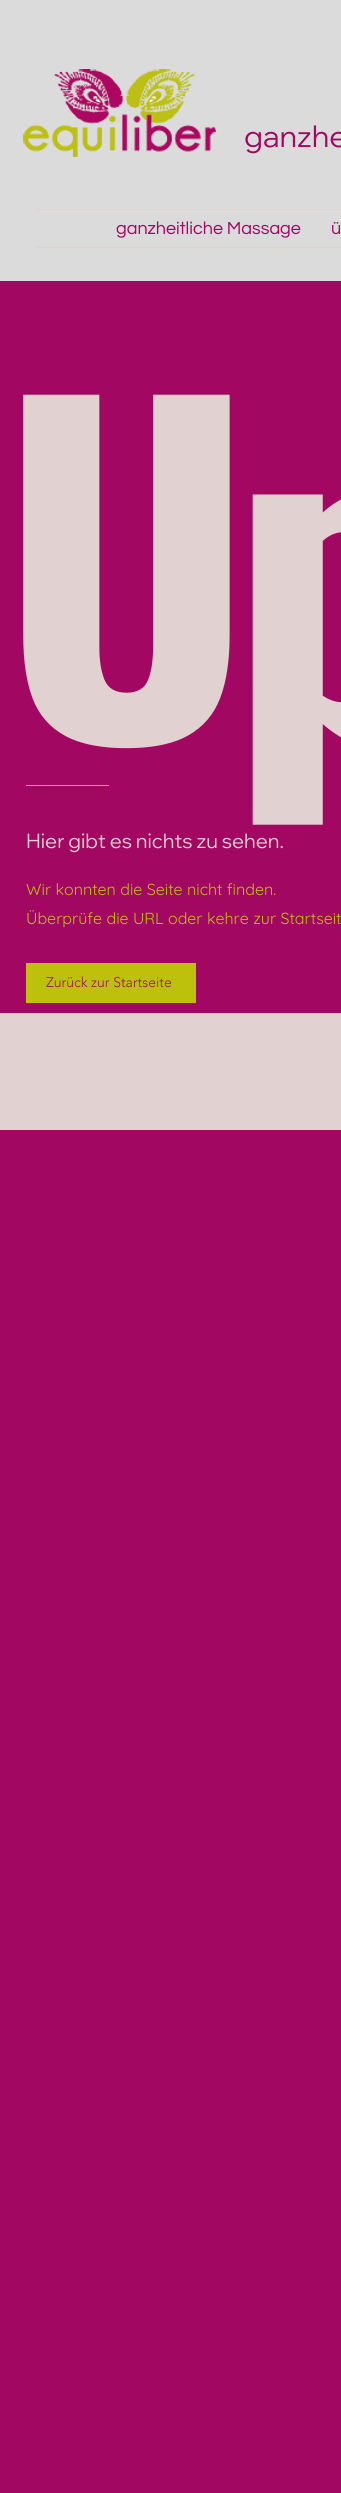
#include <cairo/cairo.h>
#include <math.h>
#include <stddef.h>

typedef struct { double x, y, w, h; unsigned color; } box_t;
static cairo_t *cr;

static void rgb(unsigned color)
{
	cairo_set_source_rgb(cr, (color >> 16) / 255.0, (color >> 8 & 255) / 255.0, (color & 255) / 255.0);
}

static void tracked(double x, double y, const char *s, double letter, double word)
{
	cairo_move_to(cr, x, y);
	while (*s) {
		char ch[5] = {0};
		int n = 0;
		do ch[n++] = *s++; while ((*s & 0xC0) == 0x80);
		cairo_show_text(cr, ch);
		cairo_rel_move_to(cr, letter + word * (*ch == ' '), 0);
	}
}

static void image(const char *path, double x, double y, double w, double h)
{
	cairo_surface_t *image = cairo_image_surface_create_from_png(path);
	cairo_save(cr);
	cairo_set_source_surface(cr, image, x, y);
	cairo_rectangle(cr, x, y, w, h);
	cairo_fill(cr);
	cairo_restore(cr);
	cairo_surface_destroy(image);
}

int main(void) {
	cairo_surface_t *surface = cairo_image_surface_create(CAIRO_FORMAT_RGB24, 341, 2493);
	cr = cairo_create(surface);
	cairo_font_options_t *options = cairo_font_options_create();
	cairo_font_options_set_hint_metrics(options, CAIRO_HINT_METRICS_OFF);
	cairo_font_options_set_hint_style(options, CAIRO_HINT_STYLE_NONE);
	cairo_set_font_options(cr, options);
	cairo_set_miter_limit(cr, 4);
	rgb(0xa20762);
	cairo_paint(cr);
	rgb(0xdbdbdb);
	cairo_rectangle(cr, 0, 0, 341, 281);
	cairo_fill(cr);
	image("img/1.png", 23, 69, 193, 88);
	{
		static const box_t items[] = {
			{36, 209, 305, 1, 0xe1d1d1},
			{36, 247, 305, 1, 0xe1d1d1},
			{26, 963, 170, 40, 0xbec10c},
			{0, 1013, 341, 117, 0xe1d1d1},
		};
		for (size_t i = 0; i < sizeof items / sizeof *items; i++) {
			rgb(items[i].color);
			cairo_rectangle(cr, items[i].x, items[i].y, items[i].w, items[i].h);
			cairo_fill(cr);
		}
	}
	cairo_select_font_face(cr, "Wix Madefor Display", CAIRO_FONT_SLANT_NORMAL, CAIRO_FONT_WEIGHT_NORMAL);
	cairo_set_font_size(cr, 30);
	rgb(0xa20762);
	cairo_move_to(cr, 244, 147);
	cairo_show_text(cr, "ganzhe");
	cairo_select_font_face(cr, "Questrial", CAIRO_FONT_SLANT_NORMAL, CAIRO_FONT_WEIGHT_NORMAL);
	cairo_set_font_size(cr, 18);
	cairo_move_to(cr, 116, 234);
	cairo_show_text(cr, "ganzheitliche Massage");
	cairo_move_to(cr, 331, 234);
	cairo_show_text(cr, "ü");
	cairo_select_font_face(cr, "Oswald", CAIRO_FONT_SLANT_NORMAL, CAIRO_FONT_WEIGHT_BOLD);
	cairo_set_font_size(cr, 430);
	rgb(0xe1d1d1);
	tracked(0, 743, "Up", -22, 0);
	rgb(0xbec10c);
	cairo_rectangle(cr, 26, 785, 83, 1);
	cairo_fill(cr);
	cairo_select_font_face(cr, "Wix Madefor Display", CAIRO_FONT_SLANT_NORMAL, CAIRO_FONT_WEIGHT_NORMAL);
	cairo_set_font_size(cr, 20);
	rgb(0xe1d1d1);
	cairo_move_to(cr, 26, 848);
	cairo_show_text(cr, "Hier gibt es nichts zu sehen.");
	cairo_select_font_face(cr, "Quicksand", CAIRO_FONT_SLANT_NORMAL, CAIRO_FONT_WEIGHT_NORMAL);
	cairo_set_font_size(cr, 16);
	rgb(0xbec10c);
	cairo_move_to(cr, 26, 895);
	cairo_show_text(cr, "Wir konnten die Seite nicht finden.");
	cairo_move_to(cr, 26, 924);
	cairo_show_text(cr, "Überprüfe die URL oder kehre zur Startseit");
	cairo_select_font_face(cr, "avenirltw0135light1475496 Light", CAIRO_FONT_SLANT_NORMAL, CAIRO_FONT_WEIGHT_NORMAL);
	cairo_set_font_size(cr, 14);
	rgb(0xa20762);
	cairo_move_to(cr, 46, 987);
	cairo_show_text(cr, "Zurück zur Startseite");
	cairo_surface_write_to_png(surface, "page.png");
	cairo_font_options_destroy(options);
	cairo_destroy(cr);
	cairo_surface_destroy(surface);
	return 0;
}
